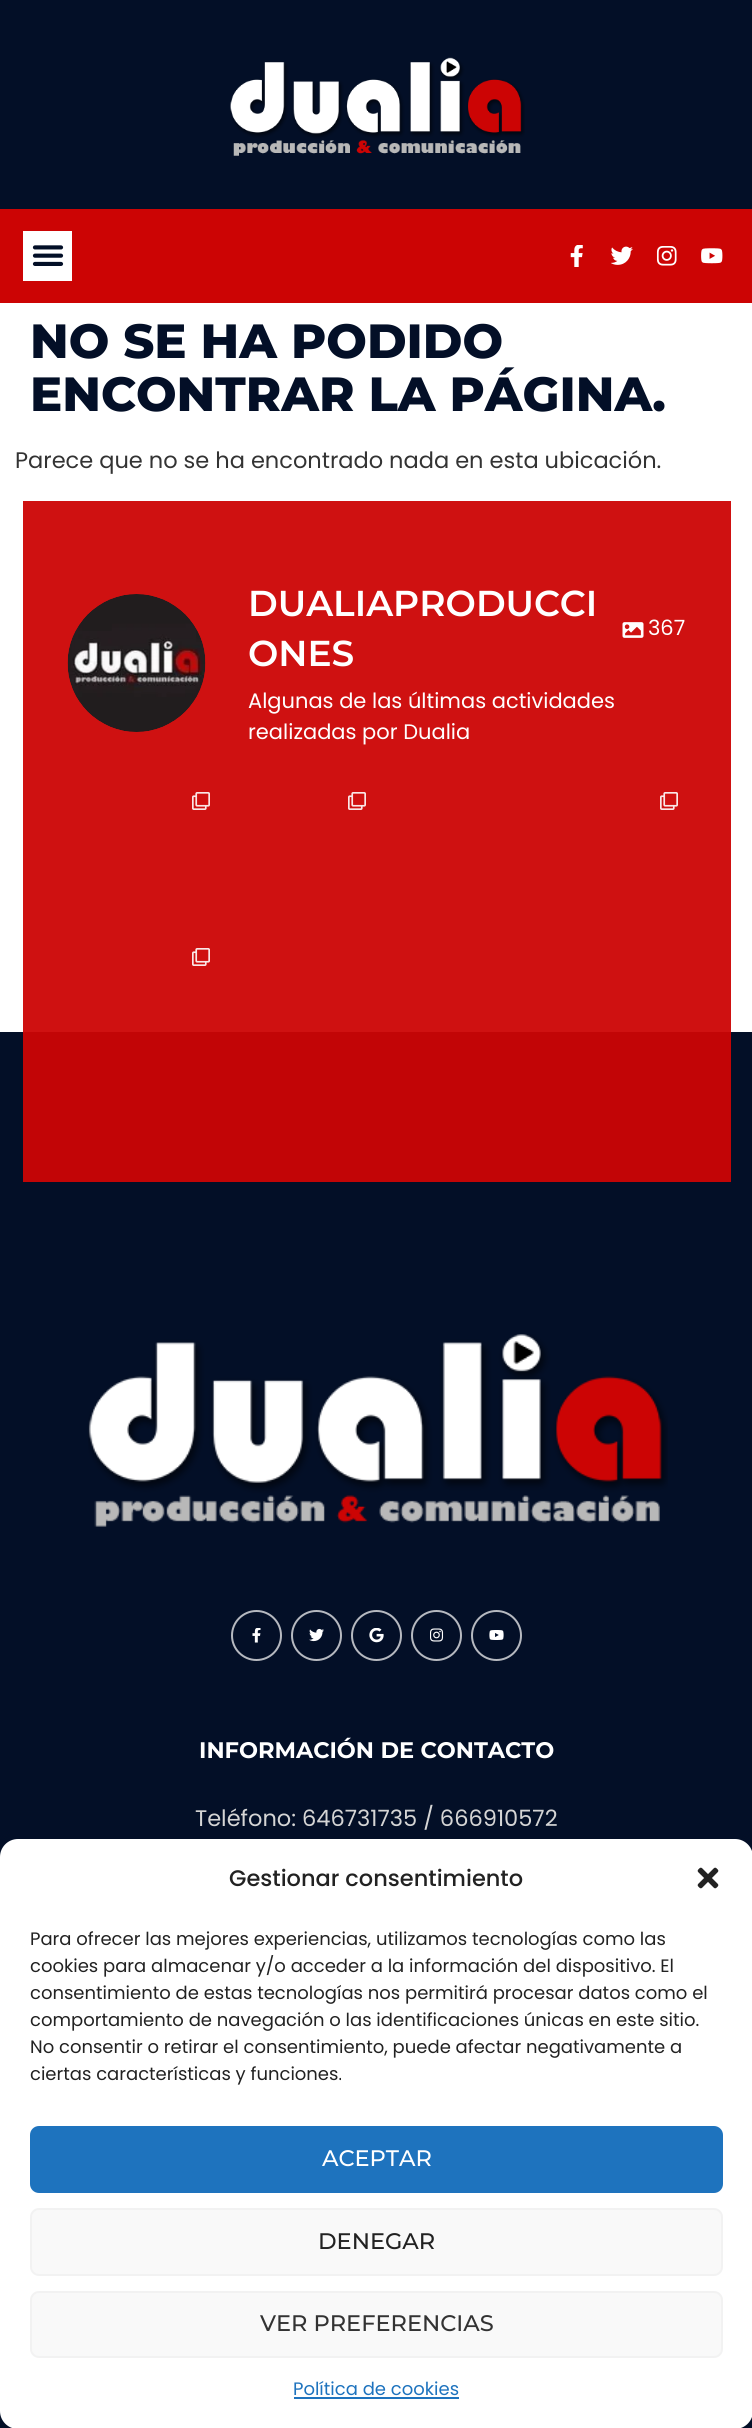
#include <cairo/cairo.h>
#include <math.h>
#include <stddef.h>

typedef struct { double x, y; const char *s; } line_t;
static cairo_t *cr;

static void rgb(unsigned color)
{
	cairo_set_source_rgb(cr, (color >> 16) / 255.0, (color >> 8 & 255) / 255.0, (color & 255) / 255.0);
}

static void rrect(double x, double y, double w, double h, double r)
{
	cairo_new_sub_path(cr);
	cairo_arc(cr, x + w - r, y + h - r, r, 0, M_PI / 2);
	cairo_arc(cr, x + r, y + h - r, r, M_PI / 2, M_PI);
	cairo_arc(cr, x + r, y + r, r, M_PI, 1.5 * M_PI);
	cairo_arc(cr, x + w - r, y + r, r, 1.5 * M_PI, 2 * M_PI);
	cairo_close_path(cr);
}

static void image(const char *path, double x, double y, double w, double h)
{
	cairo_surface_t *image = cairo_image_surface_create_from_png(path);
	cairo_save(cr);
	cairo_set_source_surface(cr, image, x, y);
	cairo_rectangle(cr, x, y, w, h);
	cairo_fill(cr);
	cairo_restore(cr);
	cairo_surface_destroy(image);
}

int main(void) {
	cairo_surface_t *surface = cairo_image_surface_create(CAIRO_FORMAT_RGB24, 752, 2428);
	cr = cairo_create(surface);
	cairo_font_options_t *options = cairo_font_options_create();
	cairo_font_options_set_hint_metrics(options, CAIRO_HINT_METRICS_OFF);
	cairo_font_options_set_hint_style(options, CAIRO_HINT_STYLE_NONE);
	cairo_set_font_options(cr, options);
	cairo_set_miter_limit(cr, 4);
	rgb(0xffffff);
	cairo_paint(cr);
	rgb(0xcf1111);
	cairo_rectangle(cr, 23, 501, 708, 531);
	cairo_fill(cr);
	rgb(0x030f27);
	cairo_rectangle(cr, 0, 0, 752, 209);
	cairo_fill(cr);
	image("img/1.png", 230, 57, 295, 99);
	rgb(0xcc0404);
	cairo_rectangle(cr, 0, 209, 752, 94);
	cairo_fill(cr);
	rgb(0xffffff);
	cairo_rectangle(cr, 23, 231, 49, 50);
	cairo_fill(cr);
	image("img/2.png", 32, 245, 32, 21);
	image("img/3.png", 570, 245, 13, 22);
	image("img/4.png", 611, 246, 22, 19);
	image("img/5.png", 656, 246, 21, 20);
	image("img/6.png", 701, 248, 22, 16);
	image("img/7.png", 67, 594, 139, 138);
	image("img/8.png", 622, 622, 22, 16);
	image("img/9.png", 192, 792, 18, 18);
	image("img/9.png", 348, 792, 18, 18);
	image("img/9.png", 660, 792, 18, 18);
	image("img/9.png", 192, 948, 18, 18);
	rgb(0x030f27);
	cairo_rectangle(cr, 0, 1032, 752, 1396);
	cairo_fill(cr);
	rgb(0xc20506);
	cairo_rectangle(cr, 23, 1032, 708, 150);
	cairo_fill(cr);
	image("img/10.png", 88, 1334, 580, 193);
	cairo_arc(cr, 256.5, 1635.5, 24.5, 0, 2 * M_PI);
	rgb(0xb6b9c0);
	cairo_stroke(cr);
	image("img/11.png", 252, 1628, 9, 15);
	cairo_arc(cr, 316.5, 1635.5, 24.5, 0, 2 * M_PI);
	cairo_stroke(cr);
	image("img/12.png", 309, 1628, 15, 14);
	cairo_arc(cr, 376.5, 1635.5, 24.5, 0, 2 * M_PI);
	cairo_stroke(cr);
	image("img/13.png", 369, 1628, 15, 15);
	cairo_arc(cr, 436.5, 1635.5, 24.5, 0, 2 * M_PI);
	cairo_stroke(cr);
	image("img/14.png", 430, 1628, 14, 14);
	cairo_arc(cr, 496.5, 1635.5, 24.5, 0, 2 * M_PI);
	cairo_stroke(cr);
	image("img/15.png", 489, 1630, 15, 10);
	rgb(0xffffff);
	rrect(0, 1839, 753, 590, 18);
	cairo_fill(cr);
	image("img/16.png", 697, 1867, 22, 22);
	rgb(0x1e73be);
	rrect(31, 2127, 691, 65, 8);
	cairo_fill_preserve(cr);
	cairo_stroke(cr);
	rgb(0xf9f9f9);
	rrect(31, 2209, 691, 66, 8);
	cairo_fill_preserve(cr);
	rgb(0xf2f2f2);
	cairo_stroke(cr);
	rgb(0xf9f9f9);
	rrect(31, 2292, 691, 65, 8);
	cairo_fill_preserve(cr);
	rgb(0xf2f2f2);
	cairo_stroke(cr);
	rgb(0x1e73be);
	cairo_rectangle(cr, 294, 2397, 165, 2);
	cairo_fill(cr);
	cairo_select_font_face(cr, "Montserrat ExtraBold", CAIRO_FONT_SLANT_NORMAL, CAIRO_FONT_WEIGHT_NORMAL);
	cairo_set_font_size(cr, 48);
	rgb(0x030f27);
	cairo_move_to(cr, 30, 358);
	cairo_show_text(cr, "NO SE HA PODIDO");
	cairo_move_to(cr, 30, 411);
	cairo_show_text(cr, "ENCONTRAR LA PÁGINA.");
	cairo_select_font_face(cr, "Poppins", CAIRO_FONT_SLANT_NORMAL, CAIRO_FONT_WEIGHT_NORMAL);
	cairo_set_font_size(cr, 22.5);
	rgb(0x333333);
	cairo_move_to(cr, 15, 468);
	cairo_show_text(cr, "Parece que no se ha encontrado nada en esta ubicación.");
	cairo_select_font_face(cr, "Montserrat SemiBold", CAIRO_FONT_SLANT_NORMAL, CAIRO_FONT_WEIGHT_NORMAL);
	cairo_set_font_size(cr, 36);
	rgb(0xffffff);
	cairo_move_to(cr, 248, 616);
	cairo_show_text(cr, "DUALIAPRODUCCI");
	cairo_move_to(cr, 248, 666);
	cairo_show_text(cr, "ONES");
	cairo_select_font_face(cr, "Poppins", CAIRO_FONT_SLANT_NORMAL, CAIRO_FONT_WEIGHT_NORMAL);
	cairo_set_font_size(cr, 21);
	{
		static const line_t items[] = {
			{648, 635, "367"},
			{248, 708, "Algunas de las últimas actividades"},
			{248, 739, "realizadas por Dualia"},
		};
		for (size_t i = 0; i < sizeof items / sizeof *items; i++) {
			cairo_move_to(cr, items[i].x, items[i].y);
			cairo_show_text(cr, items[i].s);
		}
	}
	cairo_select_font_face(cr, "Montserrat", CAIRO_FONT_SLANT_NORMAL, CAIRO_FONT_WEIGHT_BOLD);
	cairo_set_font_size(cr, 22.5);
	cairo_move_to(cr, 199, 1758);
	cairo_show_text(cr, "INFORMACIÓN DE CONTACTO");
	cairo_select_font_face(cr, "Poppins", CAIRO_FONT_SLANT_NORMAL, CAIRO_FONT_WEIGHT_NORMAL);
	rgb(0xd5d5d5);
	cairo_move_to(cr, 195, 1826);
	cairo_show_text(cr, "Teléfono: 646731735 / 666910572");
	cairo_select_font_face(cr, "Poppins Medium", CAIRO_FONT_SLANT_NORMAL, CAIRO_FONT_WEIGHT_NORMAL);
	rgb(0x222222);
	cairo_move_to(cr, 229, 1886);
	cairo_show_text(cr, "Gestionar consentimiento");
	cairo_select_font_face(cr, "Poppins", CAIRO_FONT_SLANT_NORMAL, CAIRO_FONT_WEIGHT_NORMAL);
	cairo_set_font_size(cr, 18);
	{
		static const line_t items[] = {
			{30, 1945, "Para ofrecer las mejores experiencias, utilizamos tecnologías como las"},
			{30, 1972, "cookies para almacenar y/o acceder a la información del dispositivo. El"},
			{30, 1999, "consentimiento de estas tecnologías nos permitirá procesar datos como el"},
			{30, 2026, "comportamiento de navegación o las identificaciones únicas en este sitio."},
			{30, 2053, "No consentir o retirar el consentimiento, puede afectar negativamente a"},
			{30, 2080, "ciertas características y funciones."},
		};
		for (size_t i = 0; i < sizeof items / sizeof *items; i++) {
			cairo_move_to(cr, items[i].x, items[i].y);
			cairo_show_text(cr, items[i].s);
		}
	}
	cairo_select_font_face(cr, "Montserrat Medium", CAIRO_FONT_SLANT_NORMAL, CAIRO_FONT_WEIGHT_NORMAL);
	cairo_set_font_size(cr, 22.5);
	rgb(0xffffff);
	cairo_move_to(cr, 322, 2166);
	cairo_show_text(cr, "ACEPTAR");
	rgb(0x222222);
	cairo_move_to(cr, 318, 2249);
	cairo_show_text(cr, "DENEGAR");
	rgb(0x333333);
	cairo_move_to(cr, 260, 2331);
	cairo_show_text(cr, "VER PREFERENCIAS");
	cairo_select_font_face(cr, "Poppins", CAIRO_FONT_SLANT_NORMAL, CAIRO_FONT_WEIGHT_NORMAL);
	cairo_set_font_size(cr, 18);
	rgb(0x1e73be);
	cairo_move_to(cr, 293, 2395);
	cairo_show_text(cr, "Política de cookies");
	cairo_surface_write_to_png(surface, "page.png");
	cairo_font_options_destroy(options);
	cairo_destroy(cr);
	cairo_surface_destroy(surface);
	return 0;
}
